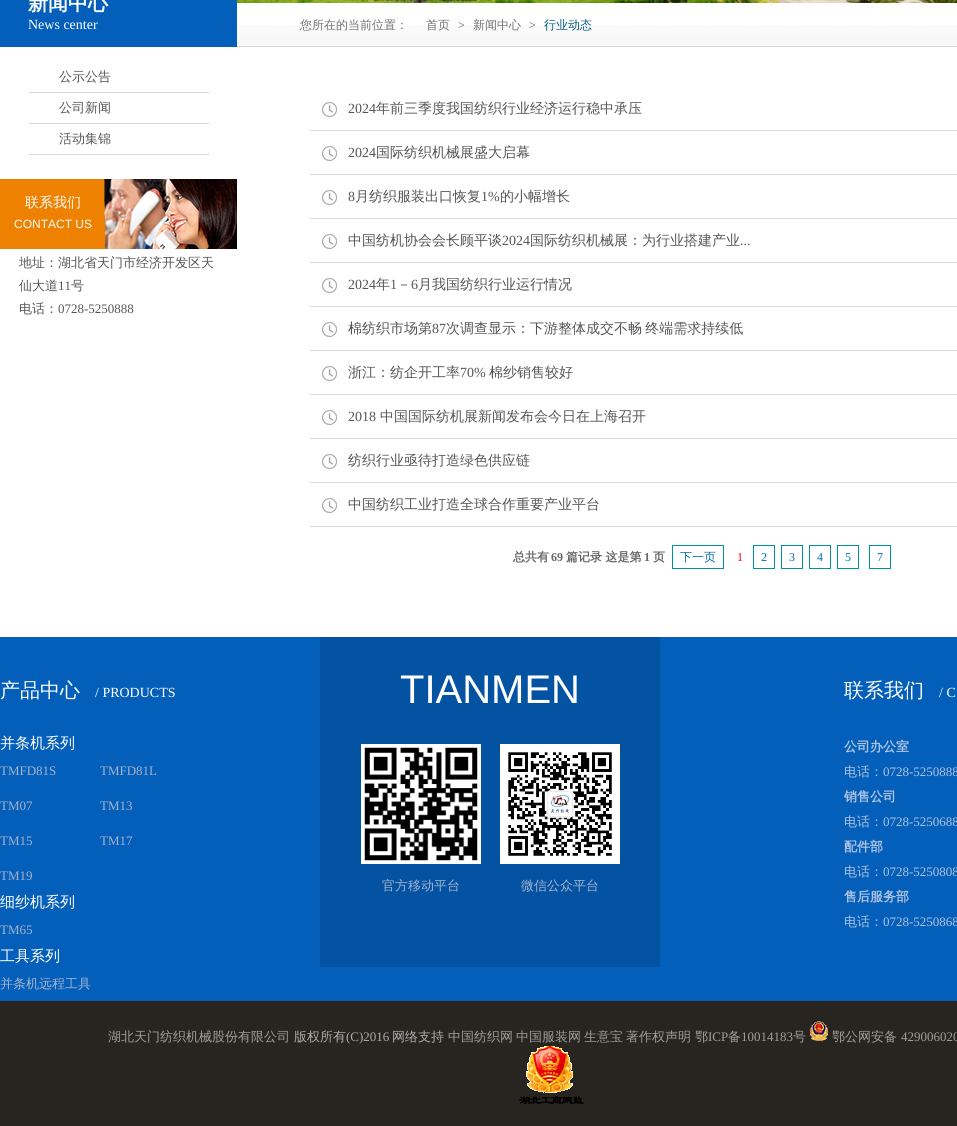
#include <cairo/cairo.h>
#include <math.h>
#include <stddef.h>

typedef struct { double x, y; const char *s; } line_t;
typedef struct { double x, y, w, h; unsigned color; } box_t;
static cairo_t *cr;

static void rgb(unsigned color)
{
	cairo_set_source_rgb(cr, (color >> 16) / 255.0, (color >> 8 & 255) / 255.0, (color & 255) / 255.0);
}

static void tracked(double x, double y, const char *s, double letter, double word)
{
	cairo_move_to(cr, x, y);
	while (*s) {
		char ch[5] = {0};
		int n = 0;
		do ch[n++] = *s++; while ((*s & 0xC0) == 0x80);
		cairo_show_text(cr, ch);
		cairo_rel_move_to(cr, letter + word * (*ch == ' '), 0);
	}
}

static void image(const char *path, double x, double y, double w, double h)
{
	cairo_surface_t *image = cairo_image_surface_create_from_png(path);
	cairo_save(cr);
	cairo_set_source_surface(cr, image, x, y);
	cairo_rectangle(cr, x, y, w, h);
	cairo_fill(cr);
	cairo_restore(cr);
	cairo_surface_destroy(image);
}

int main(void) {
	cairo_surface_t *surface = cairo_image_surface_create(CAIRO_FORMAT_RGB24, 957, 1126);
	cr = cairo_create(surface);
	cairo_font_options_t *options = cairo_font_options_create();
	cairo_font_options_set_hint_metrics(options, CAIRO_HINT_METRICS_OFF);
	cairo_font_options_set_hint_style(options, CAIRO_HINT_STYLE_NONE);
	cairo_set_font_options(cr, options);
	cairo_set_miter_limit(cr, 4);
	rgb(0xffffff);
	cairo_paint(cr);
	{
		static const box_t items[] = {
			{0, 0, 237, 47, 0x035fb9},
			{29, 92, 180, 1, 0xd8d8d8},
			{29, 123, 180, 1, 0xd8d8d8},
			{29, 154, 180, 1, 0xd8d8d8},
		};
		for (size_t i = 0; i < sizeof items / sizeof *items; i++) {
			rgb(items[i].color);
			cairo_rectangle(cr, items[i].x, items[i].y, items[i].w, items[i].h);
			cairo_fill(cr);
		}
	}
	image("img/1.png", 0, 179, 237, 70);
	image("img/2.png", 322, 102, 15, 15);
	cairo_rectangle(cr, 310, 130, 647, 1);
	cairo_fill(cr);
	image("img/2.png", 322, 146, 15, 15);
	cairo_rectangle(cr, 310, 174, 647, 1);
	cairo_fill(cr);
	image("img/2.png", 322, 190, 15, 15);
	cairo_rectangle(cr, 310, 218, 647, 1);
	cairo_fill(cr);
	image("img/2.png", 322, 234, 15, 15);
	cairo_rectangle(cr, 310, 262, 647, 1);
	cairo_fill(cr);
	image("img/2.png", 322, 278, 15, 15);
	cairo_rectangle(cr, 310, 306, 647, 1);
	cairo_fill(cr);
	image("img/2.png", 322, 322, 15, 15);
	cairo_rectangle(cr, 310, 350, 647, 1);
	cairo_fill(cr);
	image("img/2.png", 322, 366, 15, 15);
	cairo_rectangle(cr, 310, 394, 647, 1);
	cairo_fill(cr);
	image("img/2.png", 322, 410, 15, 15);
	cairo_rectangle(cr, 310, 438, 647, 1);
	cairo_fill(cr);
	image("img/2.png", 322, 454, 15, 15);
	cairo_rectangle(cr, 310, 482, 647, 1);
	cairo_fill(cr);
	image("img/2.png", 322, 498, 15, 15);
	cairo_rectangle(cr, 310, 526, 647, 1);
	cairo_fill(cr);
	cairo_rectangle(cr, 672.5, 545.5, 51, 23);
	rgb(0x00959c);
	cairo_set_line_width(cr, 1);
	cairo_stroke(cr);
	cairo_rectangle(cr, 753.5, 545.5, 21, 23);
	cairo_stroke(cr);
	cairo_rectangle(cr, 781.5, 545.5, 21, 23);
	cairo_stroke(cr);
	cairo_rectangle(cr, 809.5, 545.5, 21, 23);
	cairo_stroke(cr);
	cairo_rectangle(cr, 837.5, 545.5, 21, 23);
	cairo_stroke(cr);
	cairo_rectangle(cr, 869.5, 545.5, 21, 23);
	cairo_stroke(cr);
	image("img/3.png", 237, 0, 720, 3);
	image("img/4.png", 237, 25, 720, 22);
	rgb(0x035fb9);
	cairo_rectangle(cr, 0, 637, 957, 364);
	cairo_fill(cr);
	rgb(0x0353a2);
	cairo_rectangle(cr, 320, 637, 340, 330);
	cairo_fill(cr);
	image("img/5.png", 361, 744, 120, 120);
	image("img/6.png", 500, 744, 120, 120);
	rgb(0x282521);
	cairo_rectangle(cr, 0, 1001, 957, 125);
	cairo_fill(cr);
	image("img/7.png", 810, 1021, 18, 20);
	image("img/8.png", 519, 1046, 65, 59);
	cairo_select_font_face(cr, "WenQuanYi Zen Hei", CAIRO_FONT_SLANT_NORMAL, CAIRO_FONT_WEIGHT_BOLD);
	cairo_set_font_size(cr, 20);
	rgb(0xffffff);
	cairo_move_to(cr, 28, 10);
	cairo_show_text(cr, "新闻中心");
	cairo_select_font_face(cr, "Liberation Serif", CAIRO_FONT_SLANT_NORMAL, CAIRO_FONT_WEIGHT_NORMAL);
	cairo_set_font_size(cr, 14);
	cairo_move_to(cr, 28, 29);
	cairo_show_text(cr, "News center");
	cairo_select_font_face(cr, "WenQuanYi Zen Hei Medium", CAIRO_FONT_SLANT_NORMAL, CAIRO_FONT_WEIGHT_NORMAL);
	cairo_set_font_size(cr, 13);
	rgb(0x555555);
	{
		static const line_t items[] = {
			{59, 81, "公示公告"},
			{59, 112, "公司新闻"},
			{59, 143, "活动集锦"},
		};
		for (size_t i = 0; i < sizeof items / sizeof *items; i++) {
			cairo_move_to(cr, items[i].x, items[i].y);
			cairo_show_text(cr, items[i].s);
		}
	}
	cairo_set_font_size(cr, 14);
	rgb(0xffffff);
	cairo_move_to(cr, 25, 207);
	cairo_show_text(cr, "联系我们");
	cairo_select_font_face(cr, "Liberation Sans", CAIRO_FONT_SLANT_NORMAL, CAIRO_FONT_WEIGHT_NORMAL);
	cairo_set_font_size(cr, 12);
	cairo_move_to(cr, 14, 228);
	cairo_show_text(cr, "CONTACT US");
	cairo_select_font_face(cr, "WenQuanYi Zen Hei Medium", CAIRO_FONT_SLANT_NORMAL, CAIRO_FONT_WEIGHT_NORMAL);
	cairo_set_font_size(cr, 13);
	rgb(0x555555);
	cairo_move_to(cr, 19, 267);
	cairo_show_text(cr, "地址：湖北省天门市经济开发区天");
	cairo_move_to(cr, 19, 290);
	cairo_show_text(cr, "仙大道");
	cairo_select_font_face(cr, "Liberation Serif", CAIRO_FONT_SLANT_NORMAL, CAIRO_FONT_WEIGHT_NORMAL);
	cairo_move_to(cr, 58, 290);
	cairo_show_text(cr, "11");
	cairo_select_font_face(cr, "WenQuanYi Zen Hei Medium", CAIRO_FONT_SLANT_NORMAL, CAIRO_FONT_WEIGHT_NORMAL);
	cairo_move_to(cr, 71, 290);
	cairo_show_text(cr, "号");
	cairo_move_to(cr, 19, 313);
	cairo_show_text(cr, "电话：");
	cairo_select_font_face(cr, "Liberation Serif", CAIRO_FONT_SLANT_NORMAL, CAIRO_FONT_WEIGHT_NORMAL);
	cairo_move_to(cr, 58, 313);
	cairo_show_text(cr, "0728-5250888");
	cairo_select_font_face(cr, "WenQuanYi Zen Hei Medium", CAIRO_FONT_SLANT_NORMAL, CAIRO_FONT_WEIGHT_NORMAL);
	cairo_set_font_size(cr, 12);
	rgb(0x717172);
	cairo_move_to(cr, 300, 29);
	cairo_show_text(cr, "您所在的当前位置：");
	cairo_move_to(cr, 426, 29);
	cairo_show_text(cr, "首页");
	cairo_select_font_face(cr, "Liberation Serif", CAIRO_FONT_SLANT_NORMAL, CAIRO_FONT_WEIGHT_NORMAL);
	rgb(0x555555);
	cairo_move_to(cr, 458, 29);
	cairo_show_text(cr, ">");
	cairo_select_font_face(cr, "WenQuanYi Zen Hei Medium", CAIRO_FONT_SLANT_NORMAL, CAIRO_FONT_WEIGHT_NORMAL);
	rgb(0x717172);
	cairo_move_to(cr, 473, 29);
	cairo_show_text(cr, "新闻中心");
	cairo_select_font_face(cr, "Liberation Serif", CAIRO_FONT_SLANT_NORMAL, CAIRO_FONT_WEIGHT_NORMAL);
	rgb(0x555555);
	cairo_move_to(cr, 529, 29);
	cairo_show_text(cr, ">");
	cairo_select_font_face(cr, "WenQuanYi Zen Hei Medium", CAIRO_FONT_SLANT_NORMAL, CAIRO_FONT_WEIGHT_NORMAL);
	rgb(0x005989);
	cairo_move_to(cr, 544, 29);
	cairo_show_text(cr, "行业动态");
	cairo_select_font_face(cr, "Liberation Serif", CAIRO_FONT_SLANT_NORMAL, CAIRO_FONT_WEIGHT_NORMAL);
	cairo_set_font_size(cr, 14);
	rgb(0x555555);
	cairo_move_to(cr, 348, 113);
	cairo_show_text(cr, "2024");
	cairo_select_font_face(cr, "WenQuanYi Zen Hei Medium", CAIRO_FONT_SLANT_NORMAL, CAIRO_FONT_WEIGHT_NORMAL);
	cairo_move_to(cr, 376, 113);
	cairo_show_text(cr, "年前三季度我国纺织行业经济运行稳中承压");
	cairo_select_font_face(cr, "Liberation Serif", CAIRO_FONT_SLANT_NORMAL, CAIRO_FONT_WEIGHT_NORMAL);
	cairo_move_to(cr, 348, 157);
	cairo_show_text(cr, "2024");
	cairo_select_font_face(cr, "WenQuanYi Zen Hei Medium", CAIRO_FONT_SLANT_NORMAL, CAIRO_FONT_WEIGHT_NORMAL);
	cairo_move_to(cr, 376, 157);
	cairo_show_text(cr, "国际纺织机械展盛大启幕");
	cairo_select_font_face(cr, "Liberation Serif", CAIRO_FONT_SLANT_NORMAL, CAIRO_FONT_WEIGHT_NORMAL);
	cairo_move_to(cr, 348, 201);
	cairo_show_text(cr, "8");
	cairo_select_font_face(cr, "WenQuanYi Zen Hei Medium", CAIRO_FONT_SLANT_NORMAL, CAIRO_FONT_WEIGHT_NORMAL);
	cairo_move_to(cr, 355, 201);
	cairo_show_text(cr, "月纺织服装出口恢复");
	cairo_select_font_face(cr, "Liberation Serif", CAIRO_FONT_SLANT_NORMAL, CAIRO_FONT_WEIGHT_NORMAL);
	cairo_move_to(cr, 481, 201);
	cairo_show_text(cr, "1%");
	cairo_select_font_face(cr, "WenQuanYi Zen Hei Medium", CAIRO_FONT_SLANT_NORMAL, CAIRO_FONT_WEIGHT_NORMAL);
	cairo_move_to(cr, 500, 201);
	cairo_show_text(cr, "的小幅增长");
	cairo_move_to(cr, 348, 245);
	cairo_show_text(cr, "中国纺机协会会长顾平谈");
	cairo_select_font_face(cr, "Liberation Serif", CAIRO_FONT_SLANT_NORMAL, CAIRO_FONT_WEIGHT_NORMAL);
	cairo_move_to(cr, 502, 245);
	cairo_show_text(cr, "2024");
	cairo_select_font_face(cr, "WenQuanYi Zen Hei Medium", CAIRO_FONT_SLANT_NORMAL, CAIRO_FONT_WEIGHT_NORMAL);
	cairo_move_to(cr, 530, 245);
	cairo_show_text(cr, "国际纺织机械展：为行业搭建产业");
	cairo_select_font_face(cr, "Liberation Serif", CAIRO_FONT_SLANT_NORMAL, CAIRO_FONT_WEIGHT_NORMAL);
	cairo_move_to(cr, 740, 245);
	cairo_show_text(cr, "...");
	cairo_move_to(cr, 348, 289);
	cairo_show_text(cr, "2024");
	cairo_select_font_face(cr, "WenQuanYi Zen Hei Medium", CAIRO_FONT_SLANT_NORMAL, CAIRO_FONT_WEIGHT_NORMAL);
	cairo_move_to(cr, 376, 289);
	cairo_show_text(cr, "年");
	cairo_select_font_face(cr, "Liberation Serif", CAIRO_FONT_SLANT_NORMAL, CAIRO_FONT_WEIGHT_NORMAL);
	cairo_move_to(cr, 390, 289);
	cairo_show_text(cr, "1");
	cairo_select_font_face(cr, "WenQuanYi Zen Hei Medium", CAIRO_FONT_SLANT_NORMAL, CAIRO_FONT_WEIGHT_NORMAL);
	cairo_move_to(cr, 397, 289);
	cairo_show_text(cr, "－");
	cairo_select_font_face(cr, "Liberation Serif", CAIRO_FONT_SLANT_NORMAL, CAIRO_FONT_WEIGHT_NORMAL);
	cairo_move_to(cr, 411, 289);
	cairo_show_text(cr, "6");
	cairo_select_font_face(cr, "WenQuanYi Zen Hei Medium", CAIRO_FONT_SLANT_NORMAL, CAIRO_FONT_WEIGHT_NORMAL);
	cairo_move_to(cr, 418, 289);
	cairo_show_text(cr, "月我国纺织行业运行情况");
	cairo_move_to(cr, 348, 333);
	cairo_show_text(cr, "棉纺织市场第");
	cairo_select_font_face(cr, "Liberation Serif", CAIRO_FONT_SLANT_NORMAL, CAIRO_FONT_WEIGHT_NORMAL);
	cairo_move_to(cr, 432, 333);
	cairo_show_text(cr, "87");
	cairo_select_font_face(cr, "WenQuanYi Zen Hei Medium", CAIRO_FONT_SLANT_NORMAL, CAIRO_FONT_WEIGHT_NORMAL);
	tracked(446, 333, "次调查显示：下游整体成交不畅 终端需求持续低", 0, -1);
	cairo_move_to(cr, 348, 377);
	cairo_show_text(cr, "浙江：纺企开工率");
	cairo_select_font_face(cr, "Liberation Serif", CAIRO_FONT_SLANT_NORMAL, CAIRO_FONT_WEIGHT_NORMAL);
	cairo_move_to(cr, 460, 377);
	cairo_show_text(cr, "70%");
	cairo_select_font_face(cr, "WenQuanYi Zen Hei Medium", CAIRO_FONT_SLANT_NORMAL, CAIRO_FONT_WEIGHT_NORMAL);
	cairo_move_to(cr, 489, 377);
	cairo_show_text(cr, "棉纱销售较好");
	cairo_select_font_face(cr, "Liberation Serif", CAIRO_FONT_SLANT_NORMAL, CAIRO_FONT_WEIGHT_NORMAL);
	cairo_move_to(cr, 348, 421);
	cairo_show_text(cr, "2018");
	cairo_select_font_face(cr, "WenQuanYi Zen Hei Medium", CAIRO_FONT_SLANT_NORMAL, CAIRO_FONT_WEIGHT_NORMAL);
	{
		static const line_t items[] = {
			{380, 421, "中国国际纺机展新闻发布会今日在上海召开"},
			{348, 465, "纺织行业亟待打造绿色供应链"},
			{348, 509, "中国纺织工业打造全球合作重要产业平台"},
		};
		for (size_t i = 0; i < sizeof items / sizeof *items; i++) {
			cairo_move_to(cr, items[i].x, items[i].y);
			cairo_show_text(cr, items[i].s);
		}
	}
	cairo_select_font_face(cr, "WenQuanYi Zen Hei", CAIRO_FONT_SLANT_NORMAL, CAIRO_FONT_WEIGHT_BOLD);
	cairo_set_font_size(cr, 12);
	rgb(0x666666);
	cairo_move_to(cr, 513, 561);
	cairo_show_text(cr, "总共有");
	cairo_select_font_face(cr, "Liberation Serif", CAIRO_FONT_SLANT_NORMAL, CAIRO_FONT_WEIGHT_BOLD);
	cairo_move_to(cr, 551, 561);
	cairo_show_text(cr, "69");
	cairo_select_font_face(cr, "WenQuanYi Zen Hei", CAIRO_FONT_SLANT_NORMAL, CAIRO_FONT_WEIGHT_BOLD);
	cairo_move_to(cr, 566, 561);
	cairo_show_text(cr, "篇记录 这是第");
	cairo_select_font_face(cr, "Liberation Serif", CAIRO_FONT_SLANT_NORMAL, CAIRO_FONT_WEIGHT_BOLD);
	cairo_move_to(cr, 644, 561);
	cairo_show_text(cr, "1");
	cairo_select_font_face(cr, "WenQuanYi Zen Hei", CAIRO_FONT_SLANT_NORMAL, CAIRO_FONT_WEIGHT_BOLD);
	cairo_move_to(cr, 653, 561);
	cairo_show_text(cr, "页");
	cairo_select_font_face(cr, "WenQuanYi Zen Hei Medium", CAIRO_FONT_SLANT_NORMAL, CAIRO_FONT_WEIGHT_NORMAL);
	rgb(0x036cb4);
	cairo_move_to(cr, 680, 561);
	cairo_show_text(cr, "下一页");
	cairo_select_font_face(cr, "Liberation Serif", CAIRO_FONT_SLANT_NORMAL, CAIRO_FONT_WEIGHT_NORMAL);
	rgb(0xff0000);
	cairo_move_to(cr, 737, 561);
	cairo_show_text(cr, "1");
	rgb(0x036cb4);
	{
		static const line_t items[] = {
			{761, 561, "2"},
			{789, 561, "3"},
			{817, 561, "4"},
			{845, 561, "5"},
			{877, 561, "7"},
		};
		for (size_t i = 0; i < sizeof items / sizeof *items; i++) {
			cairo_move_to(cr, items[i].x, items[i].y);
			cairo_show_text(cr, items[i].s);
		}
	}
	cairo_select_font_face(cr, "WenQuanYi Zen Hei Medium", CAIRO_FONT_SLANT_NORMAL, CAIRO_FONT_WEIGHT_NORMAL);
	cairo_set_font_size(cr, 20);
	rgb(0xffffff);
	cairo_move_to(cr, 0, 697);
	cairo_show_text(cr, "产品中心");
	cairo_select_font_face(cr, "Liberation Serif", CAIRO_FONT_SLANT_NORMAL, CAIRO_FONT_WEIGHT_NORMAL);
	cairo_set_font_size(cr, 14);
	cairo_move_to(cr, 95, 697);
	cairo_show_text(cr, "/ PRODUCTS");
	cairo_select_font_face(cr, "WenQuanYi Zen Hei Medium", CAIRO_FONT_SLANT_NORMAL, CAIRO_FONT_WEIGHT_NORMAL);
	cairo_set_font_size(cr, 15);
	cairo_move_to(cr, 0, 748);
	cairo_show_text(cr, "并条机系列");
	cairo_select_font_face(cr, "Liberation Serif", CAIRO_FONT_SLANT_NORMAL, CAIRO_FONT_WEIGHT_NORMAL);
	cairo_set_font_size(cr, 13);
	rgb(0xa4b3ce);
	{
		static const line_t items[] = {
			{0, 775, "TMFD81S"},
			{100, 775, "TMFD81L"},
			{0, 810, "TM07"},
			{100, 810, "TM13"},
			{0, 845, "TM15"},
			{100, 845, "TM17"},
			{0, 880, "TM19"},
		};
		for (size_t i = 0; i < sizeof items / sizeof *items; i++) {
			cairo_move_to(cr, items[i].x, items[i].y);
			cairo_show_text(cr, items[i].s);
		}
	}
	cairo_select_font_face(cr, "WenQuanYi Zen Hei Medium", CAIRO_FONT_SLANT_NORMAL, CAIRO_FONT_WEIGHT_NORMAL);
	cairo_set_font_size(cr, 15);
	rgb(0xffffff);
	cairo_move_to(cr, 0, 907);
	cairo_show_text(cr, "细纱机系列");
	cairo_select_font_face(cr, "Liberation Serif", CAIRO_FONT_SLANT_NORMAL, CAIRO_FONT_WEIGHT_NORMAL);
	cairo_set_font_size(cr, 13);
	rgb(0xa4b3ce);
	cairo_move_to(cr, 0, 934);
	cairo_show_text(cr, "TM65");
	cairo_select_font_face(cr, "WenQuanYi Zen Hei Medium", CAIRO_FONT_SLANT_NORMAL, CAIRO_FONT_WEIGHT_NORMAL);
	cairo_set_font_size(cr, 15);
	rgb(0xffffff);
	cairo_move_to(cr, 0, 961);
	cairo_show_text(cr, "工具系列");
	cairo_set_font_size(cr, 13);
	rgb(0xa4b3ce);
	cairo_move_to(cr, 0, 988);
	cairo_show_text(cr, "并条机远程工具");
	cairo_select_font_face(cr, "Liberation Sans", CAIRO_FONT_SLANT_NORMAL, CAIRO_FONT_WEIGHT_NORMAL);
	cairo_set_font_size(cr, 40);
	rgb(0xffffff);
	cairo_move_to(cr, 400, 703);
	cairo_show_text(cr, "TIANMEN");
	cairo_select_font_face(cr, "WenQuanYi Zen Hei Medium", CAIRO_FONT_SLANT_NORMAL, CAIRO_FONT_WEIGHT_NORMAL);
	cairo_set_font_size(cr, 13);
	rgb(0xa4b3ce);
	cairo_move_to(cr, 382, 890);
	cairo_show_text(cr, "官方移动平台");
	cairo_move_to(cr, 521, 890);
	cairo_show_text(cr, "微信公众平台");
	cairo_set_font_size(cr, 20);
	rgb(0xffffff);
	cairo_move_to(cr, 844, 697);
	cairo_show_text(cr, "联系我们");
	cairo_select_font_face(cr, "Liberation Serif", CAIRO_FONT_SLANT_NORMAL, CAIRO_FONT_WEIGHT_NORMAL);
	cairo_set_font_size(cr, 14);
	cairo_move_to(cr, 939, 697);
	cairo_show_text(cr, "/ C");
	cairo_select_font_face(cr, "WenQuanYi Zen Hei", CAIRO_FONT_SLANT_NORMAL, CAIRO_FONT_WEIGHT_BOLD);
	cairo_set_font_size(cr, 13);
	rgb(0xb0c3e2);
	cairo_move_to(cr, 844, 751);
	cairo_show_text(cr, "公司办公室");
	cairo_select_font_face(cr, "WenQuanYi Zen Hei Medium", CAIRO_FONT_SLANT_NORMAL, CAIRO_FONT_WEIGHT_NORMAL);
	cairo_move_to(cr, 844, 776);
	cairo_show_text(cr, "电话：");
	cairo_select_font_face(cr, "Liberation Serif", CAIRO_FONT_SLANT_NORMAL, CAIRO_FONT_WEIGHT_NORMAL);
	cairo_move_to(cr, 883, 776);
	cairo_show_text(cr, "0728-5250888");
	cairo_select_font_face(cr, "WenQuanYi Zen Hei", CAIRO_FONT_SLANT_NORMAL, CAIRO_FONT_WEIGHT_BOLD);
	cairo_move_to(cr, 844, 801);
	cairo_show_text(cr, "销售公司");
	cairo_select_font_face(cr, "WenQuanYi Zen Hei Medium", CAIRO_FONT_SLANT_NORMAL, CAIRO_FONT_WEIGHT_NORMAL);
	cairo_move_to(cr, 844, 826);
	cairo_show_text(cr, "电话：");
	cairo_select_font_face(cr, "Liberation Serif", CAIRO_FONT_SLANT_NORMAL, CAIRO_FONT_WEIGHT_NORMAL);
	cairo_move_to(cr, 883, 826);
	cairo_show_text(cr, "0728-5250688");
	cairo_select_font_face(cr, "WenQuanYi Zen Hei", CAIRO_FONT_SLANT_NORMAL, CAIRO_FONT_WEIGHT_BOLD);
	cairo_move_to(cr, 844, 851);
	cairo_show_text(cr, "配件部");
	cairo_select_font_face(cr, "WenQuanYi Zen Hei Medium", CAIRO_FONT_SLANT_NORMAL, CAIRO_FONT_WEIGHT_NORMAL);
	cairo_move_to(cr, 844, 876);
	cairo_show_text(cr, "电话：");
	cairo_select_font_face(cr, "Liberation Serif", CAIRO_FONT_SLANT_NORMAL, CAIRO_FONT_WEIGHT_NORMAL);
	cairo_move_to(cr, 883, 876);
	cairo_show_text(cr, "0728-5250808");
	cairo_select_font_face(cr, "WenQuanYi Zen Hei", CAIRO_FONT_SLANT_NORMAL, CAIRO_FONT_WEIGHT_BOLD);
	cairo_move_to(cr, 844, 901);
	cairo_show_text(cr, "售后服务部");
	cairo_select_font_face(cr, "WenQuanYi Zen Hei Medium", CAIRO_FONT_SLANT_NORMAL, CAIRO_FONT_WEIGHT_NORMAL);
	cairo_move_to(cr, 844, 926);
	cairo_show_text(cr, "电话：");
	cairo_select_font_face(cr, "Liberation Serif", CAIRO_FONT_SLANT_NORMAL, CAIRO_FONT_WEIGHT_NORMAL);
	cairo_move_to(cr, 883, 926);
	cairo_show_text(cr, "0728-5250868");
	cairo_select_font_face(cr, "WenQuanYi Zen Hei Medium", CAIRO_FONT_SLANT_NORMAL, CAIRO_FONT_WEIGHT_NORMAL);
	rgb(0x9e9d9c);
	cairo_move_to(cr, 108, 1041);
	cairo_show_text(cr, "湖北天门纺织机械股份有限公司");
	rgb(0xabacad);
	cairo_move_to(cr, 294, 1041);
	cairo_show_text(cr, "版权所有");
	cairo_select_font_face(cr, "Liberation Serif", CAIRO_FONT_SLANT_NORMAL, CAIRO_FONT_WEIGHT_NORMAL);
	cairo_move_to(cr, 346, 1041);
	cairo_show_text(cr, "(C)2016");
	cairo_select_font_face(cr, "WenQuanYi Zen Hei Medium", CAIRO_FONT_SLANT_NORMAL, CAIRO_FONT_WEIGHT_NORMAL);
	cairo_move_to(cr, 392, 1041);
	cairo_show_text(cr, "网络支持");
	rgb(0x9e9d9c);
	{
		static const line_t items[] = {
			{448, 1041, "中国纺织网"},
			{516, 1041, "中国服装网"},
			{584, 1041, "生意宝"},
			{626, 1041, "著作权声明"},
			{695, 1041, "鄂"},
		};
		for (size_t i = 0; i < sizeof items / sizeof *items; i++) {
			cairo_move_to(cr, items[i].x, items[i].y);
			cairo_show_text(cr, items[i].s);
		}
	}
	cairo_select_font_face(cr, "Liberation Serif", CAIRO_FONT_SLANT_NORMAL, CAIRO_FONT_WEIGHT_NORMAL);
	cairo_move_to(cr, 708, 1041);
	cairo_show_text(cr, "ICP");
	cairo_select_font_face(cr, "WenQuanYi Zen Hei Medium", CAIRO_FONT_SLANT_NORMAL, CAIRO_FONT_WEIGHT_NORMAL);
	cairo_move_to(cr, 728, 1041);
	cairo_show_text(cr, "备");
	cairo_select_font_face(cr, "Liberation Serif", CAIRO_FONT_SLANT_NORMAL, CAIRO_FONT_WEIGHT_NORMAL);
	cairo_move_to(cr, 741, 1041);
	cairo_show_text(cr, "10014183");
	cairo_select_font_face(cr, "WenQuanYi Zen Hei Medium", CAIRO_FONT_SLANT_NORMAL, CAIRO_FONT_WEIGHT_NORMAL);
	cairo_move_to(cr, 793, 1041);
	cairo_show_text(cr, "号");
	cairo_move_to(cr, 832, 1041);
	cairo_show_text(cr, "鄂公网安备");
	cairo_select_font_face(cr, "Liberation Serif", CAIRO_FONT_SLANT_NORMAL, CAIRO_FONT_WEIGHT_NORMAL);
	cairo_move_to(cr, 901, 1041);
	cairo_show_text(cr, "429006020");
	cairo_surface_write_to_png(surface, "page.png");
	cairo_font_options_destroy(options);
	cairo_destroy(cr);
	cairo_surface_destroy(surface);
	return 0;
}
